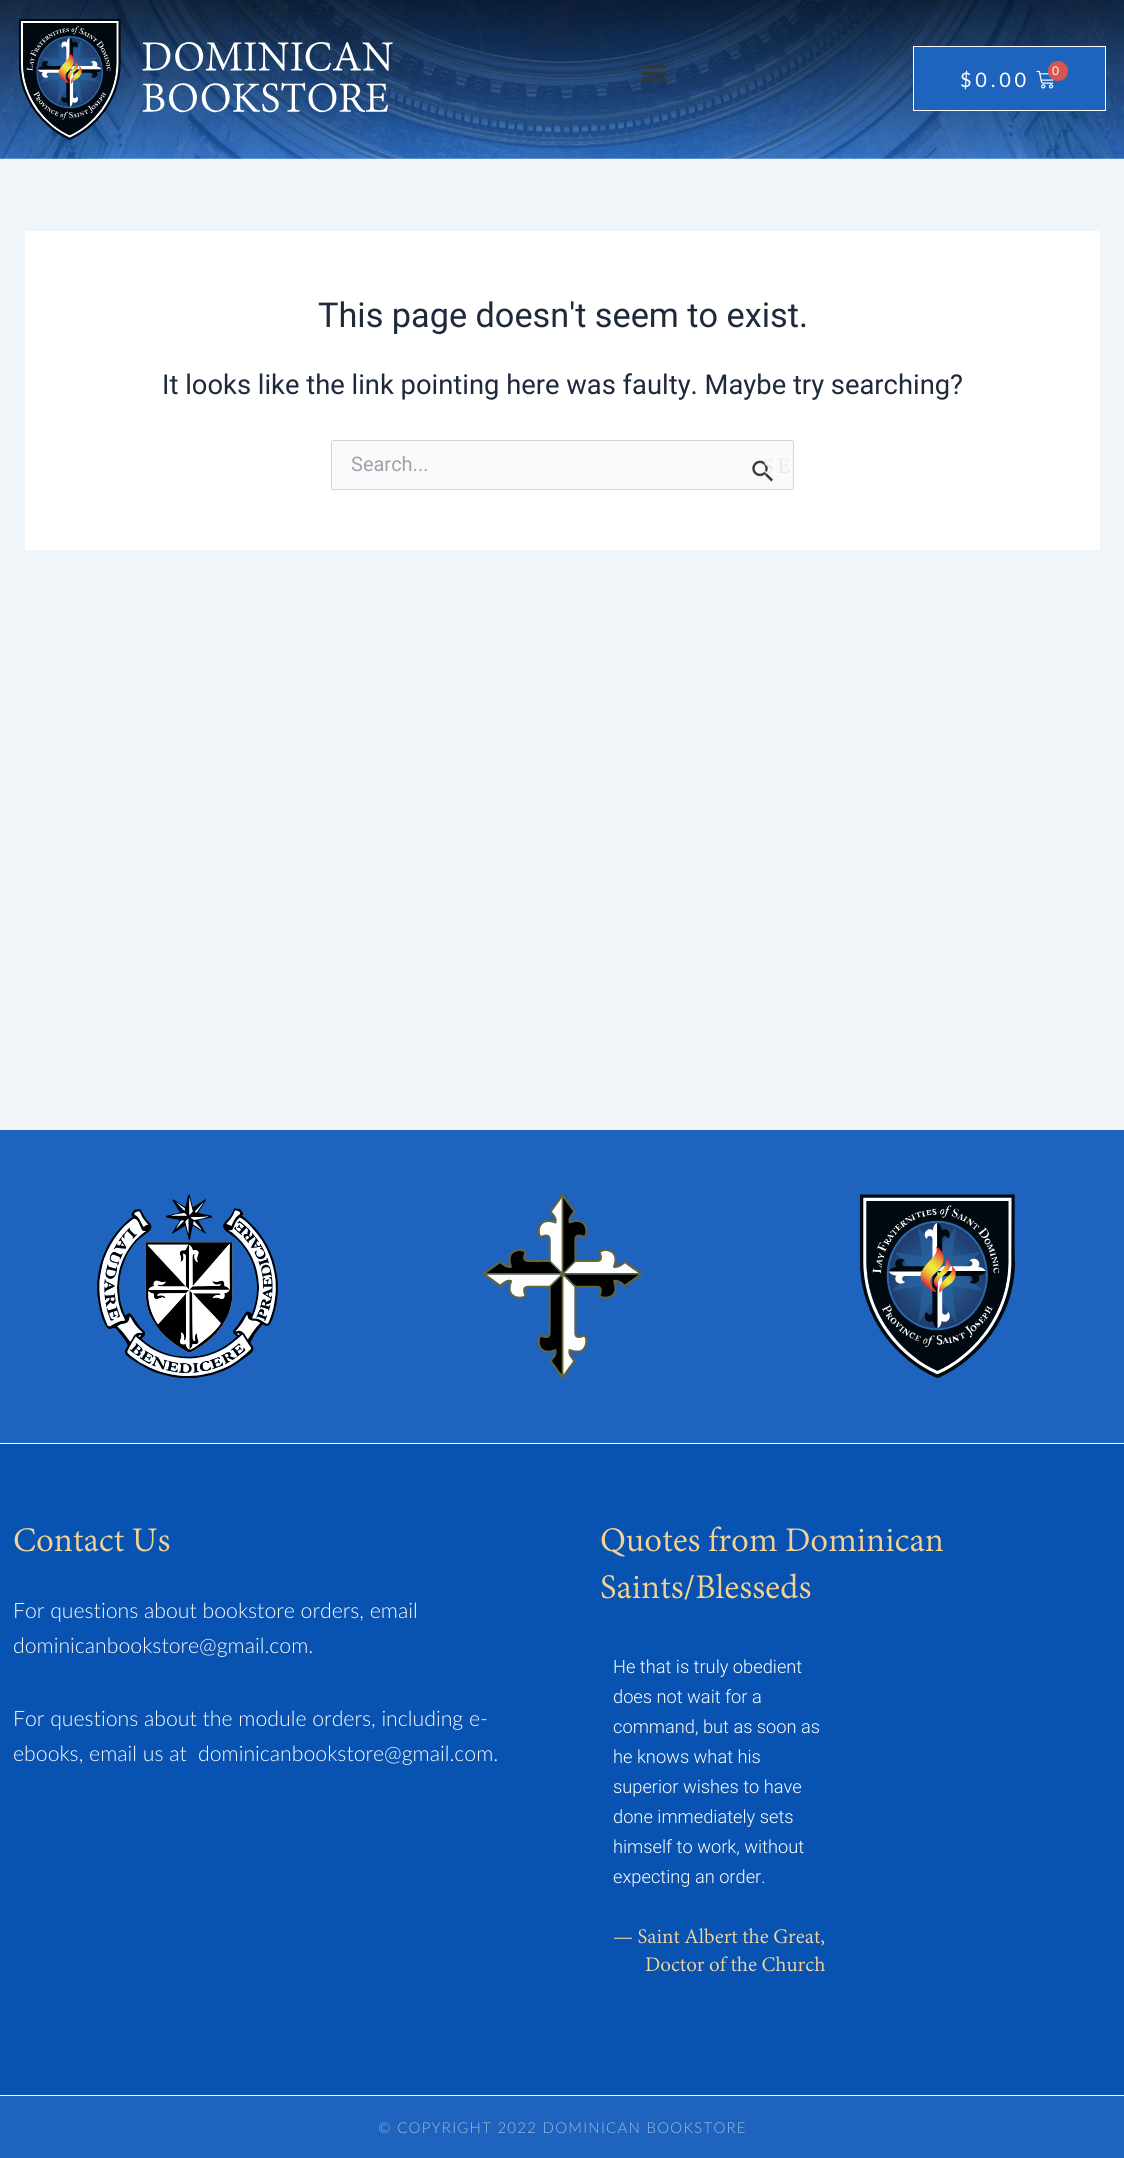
#include <cairo/cairo.h>
#include <math.h>
#include <stddef.h>

typedef struct { double x, y; const char *s; } line_t;
typedef struct { double x, y, w, h; unsigned color; } box_t;
static cairo_t *cr;

static void rgb(unsigned color)
{
	cairo_set_source_rgb(cr, (color >> 16) / 255.0, (color >> 8 & 255) / 255.0, (color & 255) / 255.0);
}

static void tracked(double x, double y, const char *s, double letter, double word)
{
	cairo_move_to(cr, x, y);
	while (*s) {
		char ch[5] = {0};
		int n = 0;
		do ch[n++] = *s++; while ((*s & 0xC0) == 0x80);
		cairo_show_text(cr, ch);
		cairo_rel_move_to(cr, letter + word * (*ch == ' '), 0);
	}
}

static void rrect(double x, double y, double w, double h, double r)
{
	cairo_new_sub_path(cr);
	cairo_arc(cr, x + w - r, y + h - r, r, 0, M_PI / 2);
	cairo_arc(cr, x + r, y + h - r, r, M_PI / 2, M_PI);
	cairo_arc(cr, x + r, y + r, r, M_PI, 1.5 * M_PI);
	cairo_arc(cr, x + w - r, y + r, r, 1.5 * M_PI, 2 * M_PI);
	cairo_close_path(cr);
}

static void image(const char *path, double x, double y, double w, double h)
{
	cairo_surface_t *image = cairo_image_surface_create_from_png(path);
	cairo_save(cr);
	cairo_set_source_surface(cr, image, x, y);
	cairo_rectangle(cr, x, y, w, h);
	cairo_fill(cr);
	cairo_restore(cr);
	cairo_surface_destroy(image);
}

int main(void) {
	cairo_surface_t *surface = cairo_image_surface_create(CAIRO_FORMAT_RGB24, 1124, 2158);
	cr = cairo_create(surface);
	cairo_font_options_t *options = cairo_font_options_create();
	cairo_font_options_set_hint_metrics(options, CAIRO_HINT_METRICS_OFF);
	cairo_font_options_set_hint_style(options, CAIRO_HINT_STYLE_NONE);
	cairo_set_font_options(cr, options);
	cairo_set_miter_limit(cr, 4);
	cairo_pattern_t *gradient;
	rgb(0xf0f5fa);
	cairo_paint(cr);
	image("img/1.png", 0, 0, 1124, 159);
	gradient = cairo_pattern_create_linear(563, 0, 563, 159);
	cairo_pattern_add_color_stop_rgba(gradient, 0, 0, 0, 0, 0.67);
	cairo_pattern_add_color_stop_rgba(gradient, 1, 0, 0, 0, 0);
	cairo_set_source(cr, gradient);
	cairo_pattern_destroy(gradient);
	cairo_rectangle(cr, 0, 0, 1124, 154);
	cairo_fill(cr);
	image("img/2.png", 19, 19, 374, 121);
	cairo_set_source_rgba(cr, 0, 0, 0, 0.05);
	cairo_rectangle(cr, 633, 53, 41, 41);
	cairo_fill(cr);
	image("img/3.png", 641, 64, 26, 18);
	rgb(0x1e64be);
	cairo_rectangle(cr, 913.5, 46.5, 192, 64);
	cairo_fill_preserve(cr);
	rgb(0xffffff);
	cairo_set_line_width(cr, 1);
	cairo_stroke(cr);
	image("img/4.png", 1036, 70, 18, 19);
	rgb(0xd9534f);
	cairo_arc(cr, 1058, 71, 10, 0, 2 * M_PI);
	cairo_fill(cr);
	rgb(0xffffff);
	cairo_rectangle(cr, 25, 231, 1075, 319);
	cairo_fill(cr);
	rgb(0xfafafa);
	rrect(331.5, 440.5, 462, 49, 2);
	cairo_fill_preserve(cr);
	rgb(0xd1d5db);
	cairo_stroke(cr);
	image("img/5.png", 752, 460, 21, 22);
	rgb(0x1e64be);
	cairo_rectangle(cr, 0, 1130, 1124, 313);
	cairo_fill(cr);
	image("img/6.png", 97, 1194, 181, 184);
	image("img/7.png", 482, 1194, 161, 185);
	image("img/8.png", 859, 1194, 156, 184);
	{
		static const box_t items[] = {
			{0, 1444, 1124, 651, 0x0852b1},
			{0, 1443, 1124, 1, 0xffffff},
			{0, 2095, 1124, 1, 0xffffff},
			{0, 2096, 1124, 62, 0x1e64be},
		};
		for (size_t i = 0; i < sizeof items / sizeof *items; i++) {
			rgb(items[i].color);
			cairo_rectangle(cr, items[i].x, items[i].y, items[i].w, items[i].h);
			cairo_fill(cr);
		}
	}
	cairo_select_font_face(cr, "Lato", CAIRO_FONT_SLANT_NORMAL, CAIRO_FONT_WEIGHT_NORMAL);
	cairo_set_font_size(cr, 20);
	rgb(0xffffff);
	tracked(960, 87, "$0.00", 3.75, 0);
	cairo_set_font_size(cr, 12);
	tracked(1052, 75, "0", 3.75, 0);
	cairo_select_font_face(cr, "Roboto", CAIRO_FONT_SLANT_NORMAL, CAIRO_FONT_WEIGHT_NORMAL);
	cairo_set_font_size(cr, 34.25);
	rgb(0x1e293b);
	cairo_move_to(cr, 318, 327);
	cairo_show_text(cr, "This page doesn't seem to exist.");
	cairo_set_font_size(cr, 27.35);
	cairo_move_to(cr, 162, 394);
	cairo_show_text(cr, "It looks like the link pointing here was faulty. Maybe try searching?");
	cairo_set_font_size(cr, 20);
	rgb(0x9ca3af);
	cairo_move_to(cr, 351, 471);
	cairo_show_text(cr, "Search...");
	cairo_select_font_face(cr, "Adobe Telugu", CAIRO_FONT_SLANT_NORMAL, CAIRO_FONT_WEIGHT_NORMAL);
	cairo_set_font_size(cr, 24);
	rgb(0xe9e9e9);
	tracked(763, 473, "SE", 3.75, 0);
	cairo_set_font_size(cr, 37.5);
	rgb(0xf4d291);
	cairo_move_to(cr, 13, 1551);
	cairo_show_text(cr, "Contact Us");
	cairo_select_font_face(cr, "Lato Light", CAIRO_FONT_SLANT_NORMAL, CAIRO_FONT_WEIGHT_NORMAL);
	cairo_set_font_size(cr, 21.25);
	rgb(0xffffff);
	{
		static const line_t items[] = {
			{13, 1618, "For questions about bookstore orders, email"},
			{13, 1653, "dominicanbookstore@gmail.com."},
			{13, 1726, "For questions about the module orders, including e-"},
			{13, 1761, "ebooks, email us at"},
			{198, 1761, "dominicanbookstore@gmail.com."},
		};
		for (size_t i = 0; i < sizeof items / sizeof *items; i++) {
			cairo_move_to(cr, items[i].x, items[i].y);
			cairo_show_text(cr, items[i].s);
		}
	}
	cairo_select_font_face(cr, "Adobe Telugu", CAIRO_FONT_SLANT_NORMAL, CAIRO_FONT_WEIGHT_NORMAL);
	cairo_set_font_size(cr, 37.5);
	rgb(0xf4d291);
	cairo_move_to(cr, 600, 1551);
	cairo_show_text(cr, "Quotes from Dominican");
	cairo_move_to(cr, 600, 1598);
	cairo_show_text(cr, "Saints/Blesseds");
	cairo_select_font_face(cr, "Roboto Light", CAIRO_FONT_SLANT_NORMAL, CAIRO_FONT_WEIGHT_NORMAL);
	cairo_set_font_size(cr, 18.25);
	rgb(0xffffff);
	{
		static const line_t items[] = {
			{613, 1673, "He that is truly obedient"},
			{613, 1703, "does not wait for a"},
			{613, 1733, "command, but as soon as"},
			{613, 1763, "he knows what his"},
			{613, 1793, "superior wishes to have"},
			{613, 1823, "done immediately sets"},
			{613, 1853, "himself to work, without"},
			{613, 1883, "expecting an order."},
		};
		for (size_t i = 0; i < sizeof items / sizeof *items; i++) {
			cairo_move_to(cr, items[i].x, items[i].y);
			cairo_show_text(cr, items[i].s);
		}
	}
	cairo_select_font_face(cr, "Adobe Telugu", CAIRO_FONT_SLANT_NORMAL, CAIRO_FONT_WEIGHT_NORMAL);
	cairo_set_font_size(cr, 22.5);
	rgb(0xf5d69d);
	cairo_move_to(cr, 613, 1943);
	cairo_show_text(cr, "— Saint Albert the Great,");
	cairo_move_to(cr, 645, 1971);
	cairo_show_text(cr, "Doctor of the Church");
	cairo_select_font_face(cr, "Lato Light", CAIRO_FONT_SLANT_NORMAL, CAIRO_FONT_WEIGHT_NORMAL);
	cairo_set_font_size(cr, 15);
	rgb(0x9cbbe2);
	tracked(378, 2133, "© COPYRIGHT 2022 DOMINICAN BOOKSTORE", 1.25, 0);
	cairo_surface_write_to_png(surface, "page.png");
	cairo_font_options_destroy(options);
	cairo_destroy(cr);
	cairo_surface_destroy(surface);
	return 0;
}
